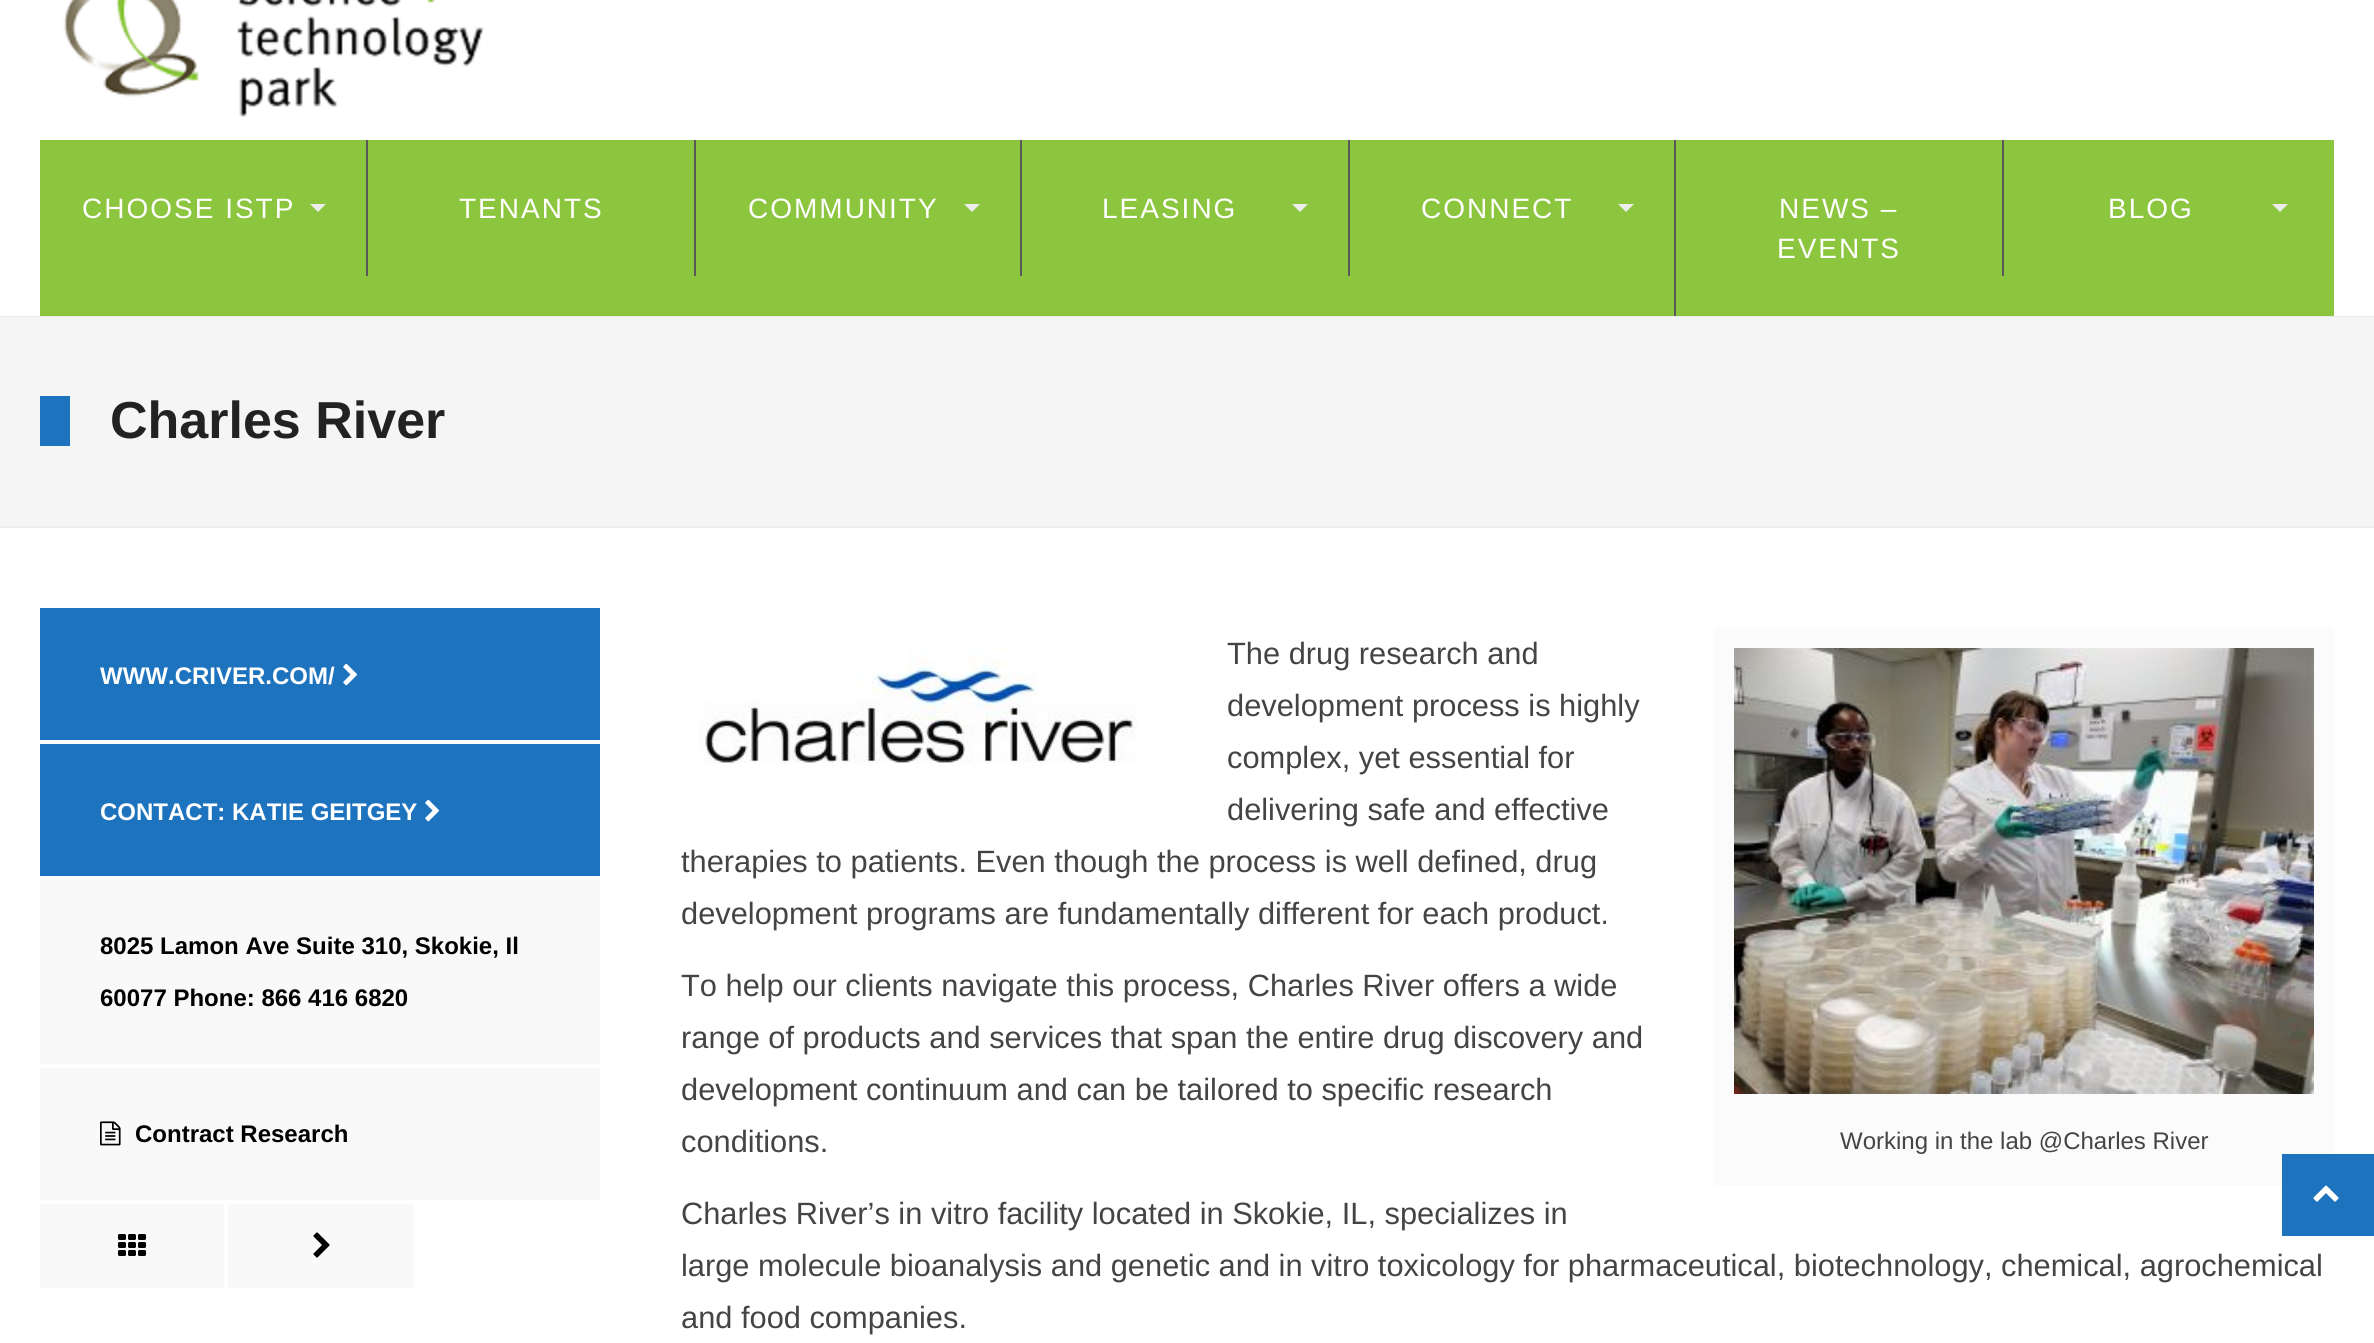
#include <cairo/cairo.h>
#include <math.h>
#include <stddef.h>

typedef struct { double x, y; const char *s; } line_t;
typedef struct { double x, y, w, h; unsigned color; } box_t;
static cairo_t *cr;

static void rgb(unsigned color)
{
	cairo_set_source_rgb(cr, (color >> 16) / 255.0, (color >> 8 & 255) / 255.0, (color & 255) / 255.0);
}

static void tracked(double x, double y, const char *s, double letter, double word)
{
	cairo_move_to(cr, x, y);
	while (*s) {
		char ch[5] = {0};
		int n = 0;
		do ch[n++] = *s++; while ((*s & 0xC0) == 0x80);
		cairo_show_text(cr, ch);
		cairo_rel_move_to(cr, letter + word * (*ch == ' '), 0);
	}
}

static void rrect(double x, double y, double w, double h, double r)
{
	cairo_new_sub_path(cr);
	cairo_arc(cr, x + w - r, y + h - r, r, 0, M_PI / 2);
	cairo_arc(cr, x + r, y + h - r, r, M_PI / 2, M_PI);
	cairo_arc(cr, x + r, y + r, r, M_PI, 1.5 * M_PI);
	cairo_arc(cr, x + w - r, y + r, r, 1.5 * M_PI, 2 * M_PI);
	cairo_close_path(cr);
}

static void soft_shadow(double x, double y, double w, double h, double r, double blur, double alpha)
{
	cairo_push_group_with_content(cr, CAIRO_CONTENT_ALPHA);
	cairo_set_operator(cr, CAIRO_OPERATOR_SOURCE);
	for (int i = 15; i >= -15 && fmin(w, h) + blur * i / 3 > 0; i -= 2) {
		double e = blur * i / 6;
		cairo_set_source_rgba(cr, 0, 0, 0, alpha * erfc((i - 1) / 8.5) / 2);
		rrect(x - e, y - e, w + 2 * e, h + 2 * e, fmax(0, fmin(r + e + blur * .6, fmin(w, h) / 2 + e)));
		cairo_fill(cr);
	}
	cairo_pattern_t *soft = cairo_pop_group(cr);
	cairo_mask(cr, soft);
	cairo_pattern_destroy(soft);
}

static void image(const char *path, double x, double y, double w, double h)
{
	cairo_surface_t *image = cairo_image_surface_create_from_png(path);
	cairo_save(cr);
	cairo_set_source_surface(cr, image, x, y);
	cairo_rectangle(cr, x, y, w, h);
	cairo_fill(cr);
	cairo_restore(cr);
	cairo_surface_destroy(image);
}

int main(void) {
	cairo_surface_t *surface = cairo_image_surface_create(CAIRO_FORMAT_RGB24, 2374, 1343);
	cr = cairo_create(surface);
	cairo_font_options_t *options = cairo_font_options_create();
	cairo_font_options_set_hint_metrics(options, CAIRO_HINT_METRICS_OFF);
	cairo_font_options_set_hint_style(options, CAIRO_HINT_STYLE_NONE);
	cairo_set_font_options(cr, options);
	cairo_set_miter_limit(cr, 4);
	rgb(0xffffff);
	cairo_paint(cr);
	rgb(0xf5f5f5);
	cairo_rectangle(cr, 0, 316, 2374, 210);
	cairo_fill(cr);
	cairo_save(cr);
	cairo_rectangle(cr, 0, 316, 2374, 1);
	cairo_clip(cr);
	rgb(0x000000);
	soft_shadow(0, -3, 2374, 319, 0, 1, 0.15);
	cairo_restore(cr);
	image("img/1.png", 63, 0, 421, 117);
	rgb(0x8cc53e);
	cairo_rectangle(cr, 40, 140, 2294, 176);
	cairo_fill(cr);
	rgb(0xededed);
	cairo_new_path(cr);
	cairo_move_to(cr, 310, 204);
	cairo_line_to(cr, 326, 204);
	cairo_line_to(cr, 318, 212);
	cairo_close_path(cr);
	cairo_fill(cr);
	rgb(0x595959);
	cairo_rectangle(cr, 366, 140, 2, 136);
	cairo_fill(cr);
	cairo_rectangle(cr, 694, 140, 2, 136);
	cairo_fill(cr);
	rgb(0xededed);
	cairo_new_path(cr);
	cairo_move_to(cr, 964, 204);
	cairo_line_to(cr, 980, 204);
	cairo_line_to(cr, 972, 212);
	cairo_close_path(cr);
	cairo_fill(cr);
	rgb(0x595959);
	cairo_rectangle(cr, 1020, 140, 2, 136);
	cairo_fill(cr);
	rgb(0xededed);
	cairo_new_path(cr);
	cairo_move_to(cr, 1292, 204);
	cairo_line_to(cr, 1308, 204);
	cairo_line_to(cr, 1300, 212);
	cairo_close_path(cr);
	cairo_fill(cr);
	rgb(0x595959);
	cairo_rectangle(cr, 1348, 140, 2, 136);
	cairo_fill(cr);
	rgb(0xededed);
	cairo_new_path(cr);
	cairo_move_to(cr, 1618, 204);
	cairo_line_to(cr, 1634, 204);
	cairo_line_to(cr, 1626, 212);
	cairo_close_path(cr);
	cairo_fill(cr);
	rgb(0x595959);
	cairo_rectangle(cr, 1674, 140, 2, 176);
	cairo_fill(cr);
	cairo_rectangle(cr, 2002, 140, 2, 136);
	cairo_fill(cr);
	rgb(0xededed);
	cairo_new_path(cr);
	cairo_move_to(cr, 2272, 204);
	cairo_line_to(cr, 2288, 204);
	cairo_line_to(cr, 2280, 212);
	cairo_close_path(cr);
	cairo_fill(cr);
	{
		static const box_t items[] = {
			{0, 526, 2374, 2, 0xededed},
			{40, 396, 30, 50, 0x1e73be},
			{40, 608, 560, 132, 0x1e73be},
		};
		for (size_t i = 0; i < sizeof items / sizeof *items; i++) {
			rgb(items[i].color);
			cairo_rectangle(cr, items[i].x, items[i].y, items[i].w, items[i].h);
			cairo_fill(cr);
		}
	}
	image("img/2.png", 343, 663, 14, 23);
	cairo_rectangle(cr, 40, 744, 560, 132);
	cairo_fill(cr);
	image("img/2.png", 425, 799, 14, 23);
	rgb(0xf9f9f9);
	cairo_rectangle(cr, 40, 880, 560, 184);
	cairo_fill(cr);
	cairo_rectangle(cr, 40, 1068, 560, 132);
	cairo_fill(cr);
	image("img/3.png", 100, 1121, 21, 25);
	cairo_rectangle(cr, 40, 1204, 184, 84);
	cairo_fill(cr);
	image("img/4.png", 118, 1234, 28, 22);
	cairo_rectangle(cr, 228, 1204, 186, 84);
	cairo_fill(cr);
	image("img/5.png", 313, 1232, 17, 26);
	image("img/6.png", 698, 648, 439, 115);
	rgb(0xfbfbfb);
	cairo_rectangle(cr, 1714, 628, 620, 558);
	cairo_fill(cr);
	image("img/7.png", 1734, 648, 580, 446);
	rgb(0x1e73be);
	cairo_rectangle(cr, 2282, 1154, 92, 82);
	cairo_fill(cr);
	image("img/8.png", 2313, 1185, 26, 17);
	cairo_select_font_face(cr, "Liberation Sans", CAIRO_FONT_SLANT_NORMAL, CAIRO_FONT_WEIGHT_NORMAL);
	cairo_set_font_size(cr, 28);
	rgb(0xffffff);
	{
		static const line_t items[] = {
			{82, 218, "CHOOSE ISTP"},
			{459, 218, "TENANTS"},
			{748, 218, "COMMUNITY"},
			{1102, 218, "LEASING"},
			{1421, 218, "CONNECT"},
			{1779, 218, "NEWS –"},
			{1777, 258, "EVENTS"},
			{2108, 218, "BLOG"},
		};
		for (size_t i = 0; i < sizeof items / sizeof *items; i++) {
			tracked(items[i].x, items[i].y, items[i].s, 2, 0);
		}
	}
	cairo_select_font_face(cr, "Liberation Sans", CAIRO_FONT_SLANT_NORMAL, CAIRO_FONT_WEIGHT_BOLD);
	cairo_set_font_size(cr, 52);
	rgb(0x222222);
	cairo_move_to(cr, 110, 438);
	cairo_show_text(cr, "Charles River");
	cairo_set_font_size(cr, 24);
	rgb(0xffffff);
	cairo_move_to(cr, 100, 684);
	cairo_show_text(cr, "WWW.CRIVER.COM/");
	cairo_move_to(cr, 100, 820);
	cairo_show_text(cr, "CONTACT: KATIE GEITGEY");
	rgb(0x000000);
	{
		static const line_t items[] = {
			{100, 954, "8025 Lamon Ave Suite 310, Skokie, Il"},
			{100, 1006, "60077 Phone: 866 416 6820"},
			{135, 1142, "Contract Research"},
		};
		for (size_t i = 0; i < sizeof items / sizeof *items; i++) {
			cairo_move_to(cr, items[i].x, items[i].y);
			cairo_show_text(cr, items[i].s);
		}
	}
	cairo_select_font_face(cr, "Liberation Sans", CAIRO_FONT_SLANT_NORMAL, CAIRO_FONT_WEIGHT_NORMAL);
	cairo_set_font_size(cr, 30.8);
	rgb(0x444444);
	{
		static const line_t items[] = {
			{1227, 664, "The drug research and"},
			{1227, 716, "development process is highly"},
			{1227, 768, "complex, yet essential for"},
			{1227, 820, "delivering safe and effective"},
			{681, 872, "therapies to patients. Even though the process is well defined, drug"},
			{681, 924, "development programs are fundamentally different for each product."},
			{681, 996, "To help our clients navigate this process, Charles River offers a wide"},
			{681, 1048, "range of products and services that span the entire drug discovery and"},
			{681, 1100, "development continuum and can be tailored to specific research"},
			{681, 1152, "conditions."},
		};
		for (size_t i = 0; i < sizeof items / sizeof *items; i++) {
			cairo_move_to(cr, items[i].x, items[i].y);
			cairo_show_text(cr, items[i].s);
		}
	}
	cairo_set_font_size(cr, 24);
	cairo_move_to(cr, 1840, 1149);
	cairo_show_text(cr, "Working in the lab @Charles River");
	cairo_set_font_size(cr, 30.8);
	{
		static const line_t items[] = {
			{681, 1224, "Charles River’s in vitro facility located in Skokie, IL, specializes in"},
			{681, 1276, "large molecule bioanalysis and genetic and in vitro toxicology for pharmaceutical, biotechnology, chemical, agrochemical"},
			{681, 1328, "and food companies."},
		};
		for (size_t i = 0; i < sizeof items / sizeof *items; i++) {
			cairo_move_to(cr, items[i].x, items[i].y);
			cairo_show_text(cr, items[i].s);
		}
	}
	cairo_surface_write_to_png(surface, "page.png");
	cairo_font_options_destroy(options);
	cairo_destroy(cr);
	cairo_surface_destroy(surface);
	return 0;
}
